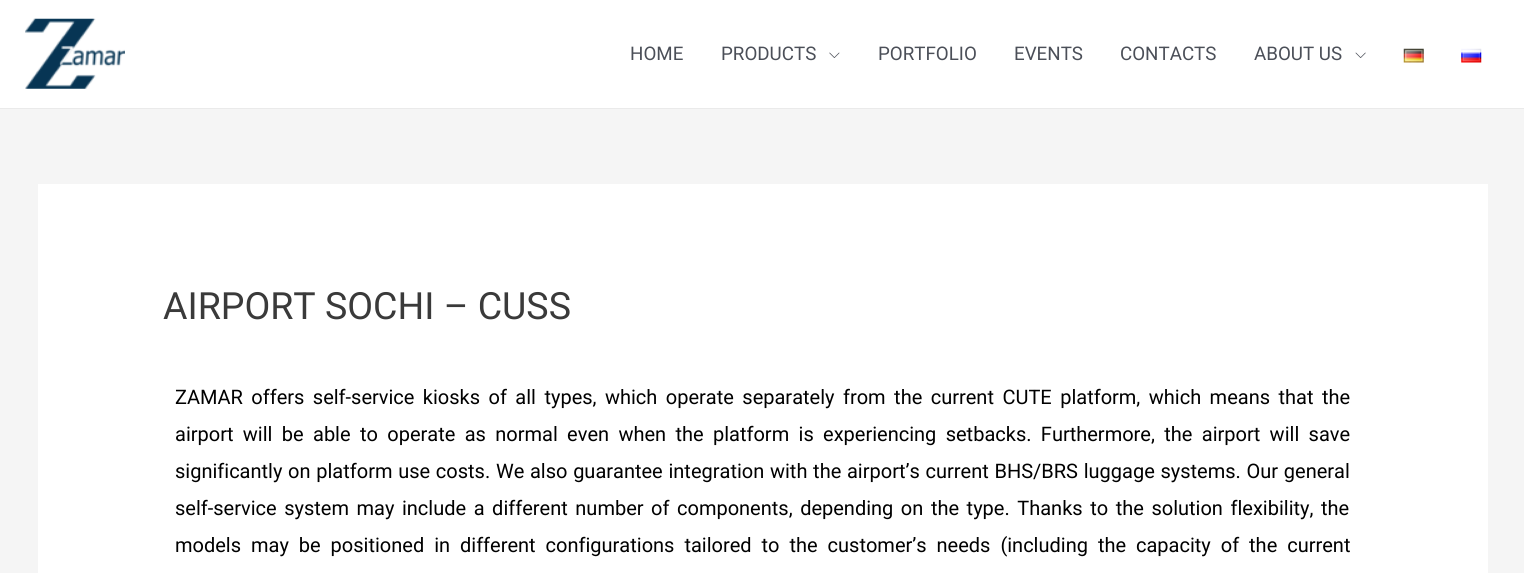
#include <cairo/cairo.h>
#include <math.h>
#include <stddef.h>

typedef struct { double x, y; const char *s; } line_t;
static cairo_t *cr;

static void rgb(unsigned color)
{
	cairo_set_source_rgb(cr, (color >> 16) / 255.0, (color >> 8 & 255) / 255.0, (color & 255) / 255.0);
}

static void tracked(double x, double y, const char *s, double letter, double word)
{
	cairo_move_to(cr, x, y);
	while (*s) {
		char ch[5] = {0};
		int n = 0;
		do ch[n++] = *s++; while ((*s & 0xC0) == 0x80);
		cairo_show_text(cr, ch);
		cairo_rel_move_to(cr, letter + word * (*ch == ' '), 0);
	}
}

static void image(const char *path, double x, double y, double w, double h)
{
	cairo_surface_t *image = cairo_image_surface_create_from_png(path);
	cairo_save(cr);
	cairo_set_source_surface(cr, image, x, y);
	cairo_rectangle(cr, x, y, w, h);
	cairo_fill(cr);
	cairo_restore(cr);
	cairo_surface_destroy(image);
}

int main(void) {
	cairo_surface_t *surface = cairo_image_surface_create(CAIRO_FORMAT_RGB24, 1524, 573);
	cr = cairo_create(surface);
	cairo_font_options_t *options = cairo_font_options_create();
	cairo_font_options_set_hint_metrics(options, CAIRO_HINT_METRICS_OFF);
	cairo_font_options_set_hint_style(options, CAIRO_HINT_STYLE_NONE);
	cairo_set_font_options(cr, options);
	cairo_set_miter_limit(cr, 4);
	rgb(0xf5f5f5);
	cairo_paint(cr);
	rgb(0xffffff);
	cairo_rectangle(cr, 0, 0, 1524, 108);
	cairo_fill(cr);
	rgb(0xeaeaea);
	cairo_rectangle(cr, 0, 108, 1524, 1);
	cairo_fill(cr);
	image("img/1.png", 25, 18, 100, 71);
	image("img/2.png", 829, 52, 11, 6);
	image("img/3.png", 1355, 52, 11, 6);
	image("img/4.png", 1403, 48, 21, 15);
	image("img/5.png", 1461, 48, 21, 15);
	rgb(0xffffff);
	cairo_rectangle(cr, 38, 184, 1450, 389);
	cairo_fill(cr);
	cairo_select_font_face(cr, "Roboto", CAIRO_FONT_SLANT_NORMAL, CAIRO_FONT_WEIGHT_NORMAL);
	cairo_set_font_size(cr, 18.75);
	rgb(0x4b4f58);
	{
		static const line_t items[] = {
			{630, 60, "HOME"},
			{721, 60, "PRODUCTS"},
			{878, 60, "PORTFOLIO"},
			{1014, 60, "EVENTS"},
			{1120, 60, "CONTACTS"},
			{1254, 60, "ABOUT US"},
		};
		for (size_t i = 0; i < sizeof items / sizeof *items; i++) {
			cairo_move_to(cr, items[i].x, items[i].y);
			cairo_show_text(cr, items[i].s);
		}
	}
	cairo_set_font_size(cr, 37.5);
	rgb(0x3a3a3a);
	cairo_move_to(cr, 163, 319);
	cairo_show_text(cr, "AIRPORT SOCHI – CUSS");
	cairo_set_font_size(cr, 20);
	rgb(0x000000);
	tracked(175, 404, "ZAMAR offers self-service kiosks of all types, which operate separately from the current CUTE platform, which means that the", 0, 3.5);
	tracked(175, 441, "airport will be able to operate as normal even when the platform is experiencing setbacks. Furthermore, the airport will save", 0, 4.4);
	tracked(175, 478, "significantly on platform use costs. We also guarantee integration with the airport’s current BHS/BRS luggage systems. Our general", 0, 0.75);
	tracked(175, 515, "self-service system may include a different number of components, depending on the type. Thanks to the solution flexibility, the", 0, 2.6);
	tracked(175, 552, "models may be positioned in different configurations tailored to the customer’s needs (including the capacity of the current", 0, 5);
	cairo_surface_write_to_png(surface, "page.png");
	cairo_font_options_destroy(options);
	cairo_destroy(cr);
	cairo_surface_destroy(surface);
	return 0;
}
